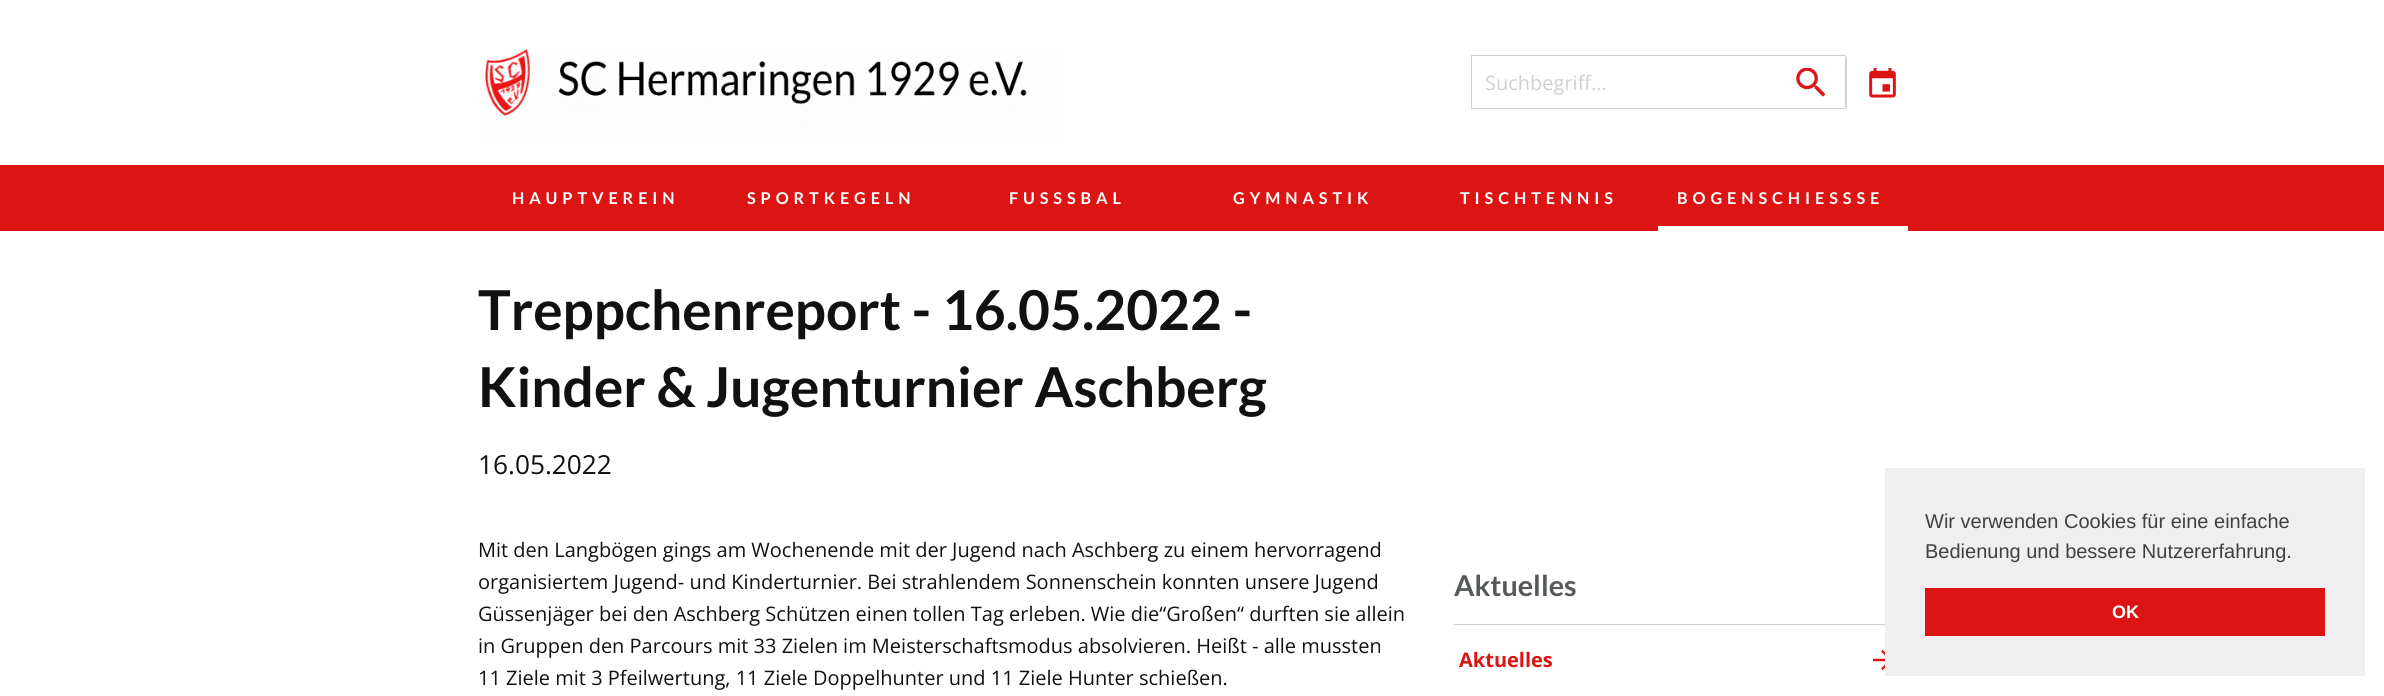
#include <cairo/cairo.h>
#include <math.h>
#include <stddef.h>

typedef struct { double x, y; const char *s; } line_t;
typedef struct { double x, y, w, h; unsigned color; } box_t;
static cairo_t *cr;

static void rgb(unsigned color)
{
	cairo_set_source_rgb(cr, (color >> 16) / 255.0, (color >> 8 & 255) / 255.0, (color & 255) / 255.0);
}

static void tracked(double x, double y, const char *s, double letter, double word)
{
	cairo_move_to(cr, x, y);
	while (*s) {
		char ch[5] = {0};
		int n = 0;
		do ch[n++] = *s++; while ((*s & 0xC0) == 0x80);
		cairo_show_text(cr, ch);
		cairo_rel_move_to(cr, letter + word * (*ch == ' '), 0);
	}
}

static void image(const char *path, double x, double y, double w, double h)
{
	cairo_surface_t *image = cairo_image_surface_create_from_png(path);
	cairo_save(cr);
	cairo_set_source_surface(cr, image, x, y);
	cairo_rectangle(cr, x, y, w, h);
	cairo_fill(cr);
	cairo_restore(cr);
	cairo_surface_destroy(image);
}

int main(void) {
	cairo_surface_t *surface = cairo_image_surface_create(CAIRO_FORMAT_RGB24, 2384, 696);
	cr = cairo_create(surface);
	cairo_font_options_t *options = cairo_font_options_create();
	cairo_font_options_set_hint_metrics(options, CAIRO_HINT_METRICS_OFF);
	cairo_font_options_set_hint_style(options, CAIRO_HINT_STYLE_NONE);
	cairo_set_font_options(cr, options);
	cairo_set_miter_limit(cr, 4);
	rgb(0xffffff);
	cairo_paint(cr);
	image("img/1.png", 479, 49, 580, 96);
	cairo_rectangle(cr, 1471.5, 55.5, 374, 53);
	rgb(0xcfd0d0);
	cairo_set_line_width(cr, 1);
	cairo_stroke(cr);
	image("img/2.png", 1796, 68, 30, 29);
	cairo_rectangle(cr, 1846, 58, 1, 50);
	cairo_fill(cr);
	image("img/3.png", 1869, 68, 27, 30);
	{
		static const box_t items[] = {
			{0, 165, 2384, 66, 0xdc1414},
			{1658, 226, 250, 5, 0xffffff},
			{1454, 624, 431, 1, 0xcfd0d0},
		};
		for (size_t i = 0; i < sizeof items / sizeof *items; i++) {
			rgb(items[i].color);
			cairo_rectangle(cr, items[i].x, items[i].y, items[i].w, items[i].h);
			cairo_fill(cr);
		}
	}
	image("img/4.png", 1873, 650, 12, 20);
	rgb(0xefefef);
	cairo_rectangle(cr, 1885, 468, 480, 208);
	cairo_fill(cr);
	rgb(0xdc1414);
	cairo_rectangle(cr, 1925, 588, 400, 48);
	cairo_fill(cr);
	cairo_select_font_face(cr, "Open Sans", CAIRO_FONT_SLANT_NORMAL, CAIRO_FONT_WEIGHT_NORMAL);
	cairo_set_font_size(cr, 20);
	rgb(0xcfd0d0);
	cairo_move_to(cr, 1485, 90);
	cairo_show_text(cr, "Suchbegriff...");
	cairo_select_font_face(cr, "Lato", CAIRO_FONT_SLANT_NORMAL, CAIRO_FONT_WEIGHT_BOLD);
	cairo_set_font_size(cr, 16.25);
	rgb(0xffffff);
	{
		static const line_t items[] = {
			{512, 204, "HAUPTVEREIN"},
			{747, 204, "SPORTKEGELN"},
			{1009, 204, "FUSSSBAL"},
			{1233, 204, "GYMNASTIK"},
			{1460, 204, "TISCHTENNIS"},
			{1677, 204, "BOGENSCHIESSSE"},
		};
		for (size_t i = 0; i < sizeof items / sizeof *items; i++) {
			tracked(items[i].x, items[i].y, items[i].s, 4.9, 0);
		}
	}
	cairo_set_font_size(cr, 55);
	rgb(0x111111);
	cairo_move_to(cr, 478, 330);
	cairo_show_text(cr, "Treppchenreport - 16.05.2022 -");
	cairo_move_to(cr, 478, 407);
	cairo_show_text(cr, "Kinder & Jugenturnier Aschberg");
	cairo_select_font_face(cr, "Open Sans", CAIRO_FONT_SLANT_NORMAL, CAIRO_FONT_WEIGHT_NORMAL);
	cairo_set_font_size(cr, 26.25);
	cairo_move_to(cr, 478, 474);
	cairo_show_text(cr, "16.05.2022");
	cairo_set_font_size(cr, 20);
	{
		static const line_t items[] = {
			{478, 557, "Mit den Langbögen gings am Wochenende mit der Jugend nach Aschberg zu einem hervorragend"},
			{478, 589, "organisiertem Jugend- und Kinderturnier. Bei strahlendem Sonnenschein konnten unsere Jugend"},
			{478, 621, "Güssenjäger bei den Aschberg Schützen einen tollen Tag erleben. Wie die“Großen“ durften sie allein"},
			{478, 653, "in Gruppen den Parcours mit 33 Zielen im Meisterschaftsmodus absolvieren. Heißt - alle mussten"},
			{478, 685, "11 Ziele mit 3 Pfeilwertung, 11 Ziele Doppelhunter und 11 Ziele Hunter schießen."},
		};
		for (size_t i = 0; i < sizeof items / sizeof *items; i++) {
			cairo_move_to(cr, items[i].x, items[i].y);
			cairo_show_text(cr, items[i].s);
		}
	}
	cairo_select_font_face(cr, "Lato", CAIRO_FONT_SLANT_NORMAL, CAIRO_FONT_WEIGHT_BOLD);
	cairo_set_font_size(cr, 28.75);
	rgb(0x555958);
	cairo_move_to(cr, 1454, 596);
	cairo_show_text(cr, "Aktuelles");
	cairo_select_font_face(cr, "Open Sans", CAIRO_FONT_SLANT_NORMAL, CAIRO_FONT_WEIGHT_BOLD);
	cairo_set_font_size(cr, 20);
	rgb(0xdc1414);
	cairo_move_to(cr, 1459, 667);
	cairo_show_text(cr, "Aktuelles");
	cairo_select_font_face(cr, "Liberation Sans", CAIRO_FONT_SLANT_NORMAL, CAIRO_FONT_WEIGHT_NORMAL);
	rgb(0x404040);
	cairo_move_to(cr, 1925, 528);
	cairo_show_text(cr, "Wir verwenden Cookies für eine einfache");
	cairo_move_to(cr, 1925, 558);
	cairo_show_text(cr, "Bedienung und bessere Nutzererfahrung.");
	cairo_select_font_face(cr, "Liberation Sans", CAIRO_FONT_SLANT_NORMAL, CAIRO_FONT_WEIGHT_BOLD);
	cairo_set_font_size(cr, 18);
	rgb(0xffffff);
	cairo_move_to(cr, 2112, 618);
	cairo_show_text(cr, "OK");
	cairo_surface_write_to_png(surface, "page.png");
	cairo_font_options_destroy(options);
	cairo_destroy(cr);
	cairo_surface_destroy(surface);
	return 0;
}
